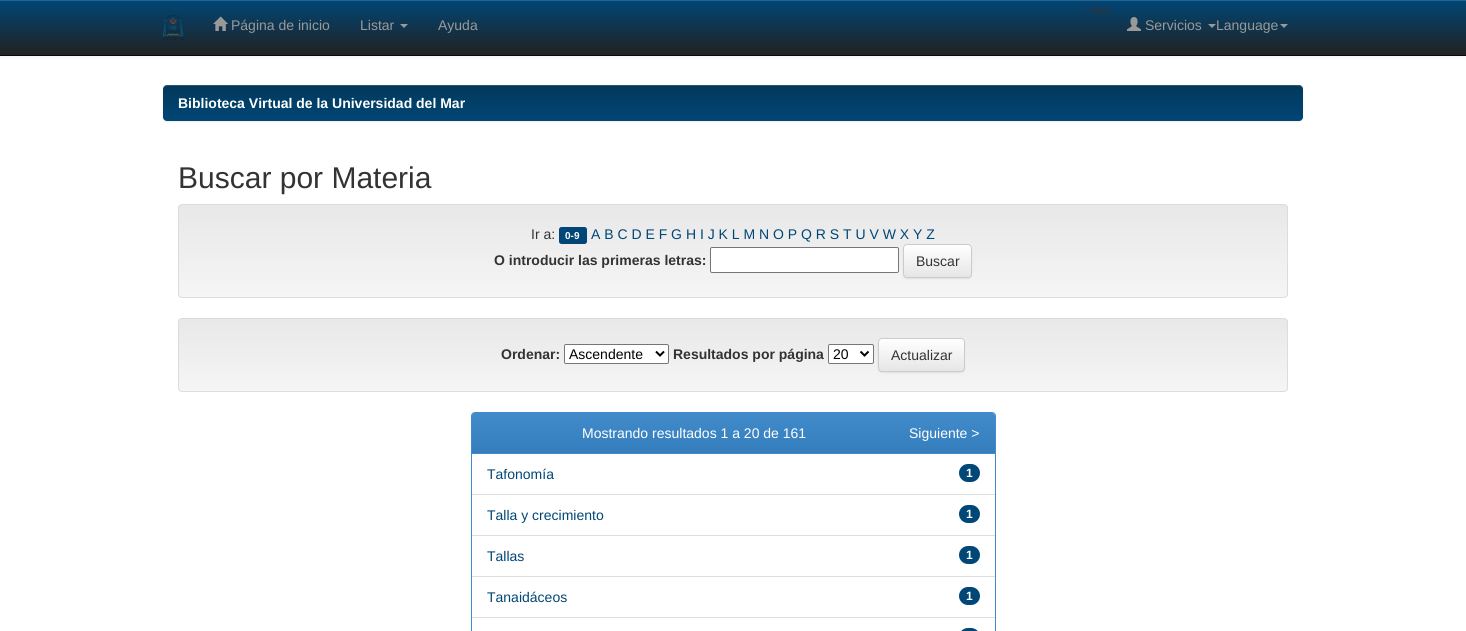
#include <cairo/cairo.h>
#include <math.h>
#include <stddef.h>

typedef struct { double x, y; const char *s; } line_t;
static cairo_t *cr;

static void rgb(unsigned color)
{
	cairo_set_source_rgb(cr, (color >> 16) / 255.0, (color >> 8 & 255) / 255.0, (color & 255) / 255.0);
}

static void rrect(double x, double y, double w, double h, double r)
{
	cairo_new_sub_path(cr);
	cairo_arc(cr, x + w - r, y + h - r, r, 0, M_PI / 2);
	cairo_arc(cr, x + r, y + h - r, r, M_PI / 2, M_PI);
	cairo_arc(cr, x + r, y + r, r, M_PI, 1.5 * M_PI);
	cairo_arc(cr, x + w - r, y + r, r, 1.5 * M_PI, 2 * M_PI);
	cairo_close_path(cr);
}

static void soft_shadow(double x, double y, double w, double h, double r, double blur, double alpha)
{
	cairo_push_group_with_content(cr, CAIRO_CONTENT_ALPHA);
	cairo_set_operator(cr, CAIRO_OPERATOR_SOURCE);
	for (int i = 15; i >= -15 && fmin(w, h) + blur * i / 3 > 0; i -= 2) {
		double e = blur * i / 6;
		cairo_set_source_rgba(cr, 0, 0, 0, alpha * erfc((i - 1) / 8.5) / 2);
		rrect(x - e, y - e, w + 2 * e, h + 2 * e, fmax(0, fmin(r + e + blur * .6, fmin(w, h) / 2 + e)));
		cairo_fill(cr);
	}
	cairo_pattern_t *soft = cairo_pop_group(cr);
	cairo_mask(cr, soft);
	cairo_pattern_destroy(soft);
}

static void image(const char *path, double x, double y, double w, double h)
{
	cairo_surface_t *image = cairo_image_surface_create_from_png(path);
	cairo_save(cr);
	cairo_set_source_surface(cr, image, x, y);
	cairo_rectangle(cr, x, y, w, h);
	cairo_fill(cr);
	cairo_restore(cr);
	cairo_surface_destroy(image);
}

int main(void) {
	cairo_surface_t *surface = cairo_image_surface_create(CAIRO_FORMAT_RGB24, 1466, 631);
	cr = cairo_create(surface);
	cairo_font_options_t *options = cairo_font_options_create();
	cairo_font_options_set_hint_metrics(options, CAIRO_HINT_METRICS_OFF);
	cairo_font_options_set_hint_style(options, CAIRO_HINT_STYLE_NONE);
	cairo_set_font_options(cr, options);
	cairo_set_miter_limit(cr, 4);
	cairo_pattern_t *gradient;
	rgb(0xffffff);
	cairo_paint(cr);
	rgb(0x000000);
	soft_shadow(0, 1, 1466, 56, 0, 2.5, 0.07);
	gradient = cairo_pattern_create_linear(733, 0, 733, 55);
	cairo_pattern_add_color_stop_rgba(gradient, 0, 0, 0.275, 0.463, 1);
	cairo_pattern_add_color_stop_rgba(gradient, 1, 0.133, 0.133, 0.133, 1);
	cairo_set_source(cr, gradient);
	cairo_pattern_destroy(gradient);
	cairo_rectangle(cr, 0, 1, 1466, 54);
	cairo_fill(cr);
	rgb(0x26628a);
	cairo_rectangle(cr, 0, 0, 1466, 1);
	cairo_fill(cr);
	rgb(0x080808);
	cairo_rectangle(cr, 0, 55, 1466, 1);
	cairo_fill(cr);
	image("img/1.png", 163, 15, 20, 25);
	image("img/2.png", 213, 16, 15, 15);
	rgb(0x999999);
	cairo_new_path(cr);
	cairo_move_to(cr, 400, 24);
	cairo_line_to(cr, 408, 24);
	cairo_line_to(cr, 404, 28);
	cairo_close_path(cr);
	cairo_fill(cr);
	image("img/3.png", 1127, 17, 14, 14);
	cairo_new_path(cr);
	cairo_move_to(cr, 1208, 24);
	cairo_line_to(cr, 1216, 24);
	cairo_line_to(cr, 1212, 28);
	cairo_close_path(cr);
	cairo_fill(cr);
	cairo_new_path(cr);
	cairo_move_to(cr, 1280, 24);
	cairo_line_to(cr, 1288, 24);
	cairo_line_to(cr, 1284, 28);
	cairo_close_path(cr);
	cairo_fill(cr);
	rgb(0x000000);
	soft_shadow(163, 86, 1140, 36, 4, 0.5, 0.07);
	gradient = cairo_pattern_create_linear(733, 85, 733, 121);
	cairo_pattern_add_color_stop_rgba(gradient, 0, 0.008, 0.22, 0.353, 1);
	cairo_pattern_add_color_stop_rgba(gradient, 1, 0, 0.275, 0.463, 1);
	cairo_set_source(cr, gradient);
	cairo_pattern_destroy(gradient);
	rrect(163, 85, 1140, 36, 4);
	cairo_fill(cr);
	cairo_set_source_rgba(cr, 1, 1, 1, 0.15);
	cairo_new_path(cr);
	cairo_move_to(cr, 167, 86);
	cairo_line_to(cr, 1299, 86);
	cairo_curve_to(cr, 1301, 86, 1303, 88, 1303, 90);
	cairo_curve_to(cr, 1303, 87, 1302, 85, 1299, 85);
	cairo_line_to(cr, 167, 85);
	cairo_curve_to(cr, 164, 85, 163, 87, 163, 90);
	cairo_curve_to(cr, 163, 88, 165, 86, 167, 86);
	cairo_close_path(cr);
	cairo_fill(cr);
	cairo_save(cr);
	rrect(178, 204, 1110, 94, 4);
	cairo_clip(cr);
	gradient = cairo_pattern_create_linear(733, 205, 733, 297);
	cairo_pattern_add_color_stop_rgba(gradient, 0, 0.91, 0.91, 0.91, 1);
	cairo_pattern_add_color_stop_rgba(gradient, 1, 0.961, 0.961, 0.961, 1);
	cairo_set_source(cr, gradient);
	cairo_pattern_destroy(gradient);
	cairo_rectangle(cr, 178, 205, 1110, 92);
	cairo_fill(cr);
	cairo_restore(cr);
	rrect(178.5, 204.5, 1109, 93, 3.5);
	rgb(0xdcdcdc);
	cairo_set_line_width(cr, 1);
	cairo_stroke(cr);
	rgb(0x004676);
	rrect(559, 227, 28, 17, 2.5);
	cairo_fill(cr);
	rgb(0xffffff);
	rrect(710.5, 247.5, 188, 25, 1.5);
	cairo_fill_preserve(cr);
	rgb(0x767676);
	cairo_stroke(cr);
	rgb(0x000000);
	soft_shadow(903, 245, 69, 34, 4, 0.5, 0.07);
	cairo_save(cr);
	rrect(903, 244, 69, 34, 4);
	cairo_clip(cr);
	gradient = cairo_pattern_create_linear(938, 245, 938, 277);
	cairo_pattern_add_color_stop_rgba(gradient, 0, 1, 1, 1, 1);
	cairo_pattern_add_color_stop_rgba(gradient, 1, 0.902, 0.902, 0.902, 1);
	cairo_set_source(cr, gradient);
	cairo_pattern_destroy(gradient);
	cairo_rectangle(cr, 903, 245, 69, 32);
	cairo_fill(cr);
	cairo_restore(cr);
	rrect(903.5, 244.5, 68, 33, 3.5);
	rgb(0xcccccc);
	cairo_stroke(cr);
	cairo_save(cr);
	rrect(178, 318, 1110, 74, 4);
	cairo_clip(cr);
	gradient = cairo_pattern_create_linear(733, 319, 733, 391);
	cairo_pattern_add_color_stop_rgba(gradient, 0, 0.91, 0.91, 0.91, 1);
	cairo_pattern_add_color_stop_rgba(gradient, 1, 0.961, 0.961, 0.961, 1);
	cairo_set_source(cr, gradient);
	cairo_pattern_destroy(gradient);
	cairo_rectangle(cr, 178, 319, 1110, 72);
	cairo_fill(cr);
	cairo_restore(cr);
	rrect(178.5, 318.5, 1109, 73, 3.5);
	rgb(0xdcdcdc);
	cairo_stroke(cr);
	rgb(0xffffff);
	rrect(564.5, 344.5, 104, 19, 1.5);
	cairo_fill_preserve(cr);
	rgb(0x767676);
	cairo_stroke(cr);
	cairo_new_path(cr);
	cairo_move_to(cr, 656, 351.5);
	cairo_line_to(cr, 660, 355.5);
	cairo_line_to(cr, 664, 351.5);
	rgb(0x000000);
	cairo_set_line_width(cr, 2);
	cairo_stroke(cr);
	rgb(0xffffff);
	rrect(828.5, 344.5, 45, 19, 1.5);
	cairo_fill_preserve(cr);
	rgb(0x767676);
	cairo_set_line_width(cr, 1);
	cairo_stroke(cr);
	cairo_new_path(cr);
	cairo_move_to(cr, 860.5, 351.5);
	cairo_line_to(cr, 864.5, 355.5);
	cairo_line_to(cr, 868.5, 351.5);
	rgb(0x000000);
	cairo_set_line_width(cr, 2);
	cairo_stroke(cr);
	rgb(0x000000);
	soft_shadow(878, 339, 87, 34, 4, 0.5, 0.07);
	cairo_save(cr);
	rrect(878, 338, 87, 34, 4);
	cairo_clip(cr);
	gradient = cairo_pattern_create_linear(922, 339, 922, 371);
	cairo_pattern_add_color_stop_rgba(gradient, 0, 1, 1, 1, 1);
	cairo_pattern_add_color_stop_rgba(gradient, 1, 0.902, 0.902, 0.902, 1);
	cairo_set_source(cr, gradient);
	cairo_pattern_destroy(gradient);
	cairo_rectangle(cr, 878, 339, 87, 32);
	cairo_fill(cr);
	cairo_restore(cr);
	rrect(878.5, 338.5, 86, 33, 3.5);
	rgb(0xcccccc);
	cairo_set_line_width(cr, 1);
	cairo_stroke(cr);
	rrect(471.5, 412.5, 524, 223, 3.5);
	rgb(0x428bca);
	cairo_stroke(cr);
	cairo_new_path(cr);
	cairo_move_to(cr, 475, 413);
	cairo_line_to(cr, 992, 413);
	cairo_curve_to(cr, 993.5, 413, 995, 414.5, 995, 416);
	cairo_line_to(cr, 995, 454);
	cairo_line_to(cr, 472, 454);
	cairo_line_to(cr, 472, 416);
	cairo_curve_to(cr, 472, 414.5, 473.5, 413, 475, 413);
	cairo_close_path(cr);
	cairo_fill(cr);
	gradient = cairo_pattern_create_linear(734, 413, 734, 453);
	cairo_pattern_add_color_stop_rgba(gradient, 0, 0.259, 0.545, 0.792, 1);
	cairo_pattern_add_color_stop_rgba(gradient, 1, 0.208, 0.494, 0.741, 1);
	cairo_set_source(cr, gradient);
	cairo_pattern_destroy(gradient);
	cairo_new_path(cr);
	cairo_move_to(cr, 475, 413);
	cairo_line_to(cr, 992, 413);
	cairo_curve_to(cr, 993.5, 413, 995, 414.5, 995, 416);
	cairo_line_to(cr, 995, 453);
	cairo_line_to(cr, 472, 453);
	cairo_line_to(cr, 472, 416);
	cairo_curve_to(cr, 472, 414.5, 473.5, 413, 475, 413);
	cairo_close_path(cr);
	cairo_fill(cr);
	rgb(0xdddddd);
	cairo_rectangle(cr, 472, 494, 523, 1);
	cairo_fill(cr);
	rgb(0x004676);
	rrect(959, 464, 21, 18, 9);
	cairo_fill(cr);
	rgb(0xdddddd);
	cairo_rectangle(cr, 472, 535, 523, 1);
	cairo_fill(cr);
	rgb(0x004676);
	rrect(959, 505, 21, 18, 9);
	cairo_fill(cr);
	rgb(0xdddddd);
	cairo_rectangle(cr, 472, 576, 523, 1);
	cairo_fill(cr);
	rgb(0x004676);
	rrect(959, 546, 21, 18, 9);
	cairo_fill(cr);
	rgb(0xdddddd);
	cairo_rectangle(cr, 472, 617, 523, 1);
	cairo_fill(cr);
	rgb(0x004676);
	rrect(959, 587, 21, 18, 9);
	cairo_fill(cr);
	rrect(959, 628, 21, 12, 9);
	cairo_fill(cr);
	cairo_select_font_face(cr, "Liberation Sans", CAIRO_FONT_SLANT_NORMAL, CAIRO_FONT_WEIGHT_NORMAL);
	cairo_set_font_size(cr, 14);
	rgb(0x999999);
	{
		static const line_t items[] = {
			{231, 30, "Página de inicio"},
			{360, 30, "Listar"},
			{438, 30, "Ayuda"},
		};
		for (size_t i = 0; i < sizeof items / sizeof *items; i++) {
			cairo_move_to(cr, items[i].x, items[i].y);
			cairo_show_text(cr, items[i].s);
		}
	}
	rgb(0x333333);
	cairo_move_to(cr, 1082, 15);
	cairo_show_text(cr, "--%>");
	rgb(0x999999);
	cairo_move_to(cr, 1145, 30);
	cairo_show_text(cr, "Servicios");
	cairo_move_to(cr, 1216, 30);
	cairo_show_text(cr, "Language");
	cairo_select_font_face(cr, "Liberation Sans", CAIRO_FONT_SLANT_NORMAL, CAIRO_FONT_WEIGHT_BOLD);
	rgb(0xffffff);
	cairo_move_to(cr, 178, 108);
	cairo_show_text(cr, "Biblioteca Virtual de la Universidad del Mar");
	cairo_select_font_face(cr, "Liberation Sans", CAIRO_FONT_SLANT_NORMAL, CAIRO_FONT_WEIGHT_NORMAL);
	cairo_set_font_size(cr, 30);
	rgb(0x333333);
	cairo_move_to(cr, 178, 188);
	cairo_show_text(cr, "Buscar por Materia");
	cairo_set_font_size(cr, 14);
	cairo_move_to(cr, 531, 239);
	cairo_show_text(cr, "Ir a:");
	cairo_select_font_face(cr, "Liberation Sans", CAIRO_FONT_SLANT_NORMAL, CAIRO_FONT_WEIGHT_BOLD);
	cairo_set_font_size(cr, 10);
	rgb(0xffffff);
	cairo_move_to(cr, 565, 239);
	cairo_show_text(cr, "0-9");
	cairo_select_font_face(cr, "Liberation Sans", CAIRO_FONT_SLANT_NORMAL, CAIRO_FONT_WEIGHT_NORMAL);
	cairo_set_font_size(cr, 14);
	rgb(0x004676);
	cairo_move_to(cr, 591, 239);
	cairo_show_text(cr, "A B C D E F G H I J K L M N O P Q R S T U V W X Y Z");
	cairo_select_font_face(cr, "Liberation Sans", CAIRO_FONT_SLANT_NORMAL, CAIRO_FONT_WEIGHT_BOLD);
	rgb(0x333333);
	cairo_move_to(cr, 494, 265);
	cairo_show_text(cr, "O introducir las primeras letras:");
	cairo_select_font_face(cr, "Liberation Sans", CAIRO_FONT_SLANT_NORMAL, CAIRO_FONT_WEIGHT_NORMAL);
	cairo_move_to(cr, 916, 266);
	cairo_show_text(cr, "Buscar");
	cairo_select_font_face(cr, "Liberation Sans", CAIRO_FONT_SLANT_NORMAL, CAIRO_FONT_WEIGHT_BOLD);
	cairo_move_to(cr, 501, 359);
	cairo_show_text(cr, "Ordenar:");
	cairo_select_font_face(cr, "Liberation Sans", CAIRO_FONT_SLANT_NORMAL, CAIRO_FONT_WEIGHT_NORMAL);
	rgb(0x000000);
	cairo_move_to(cr, 569, 359);
	cairo_show_text(cr, "Ascendente");
	cairo_select_font_face(cr, "Liberation Sans", CAIRO_FONT_SLANT_NORMAL, CAIRO_FONT_WEIGHT_BOLD);
	rgb(0x333333);
	cairo_move_to(cr, 673, 359);
	cairo_show_text(cr, "Resultados por página");
	cairo_select_font_face(cr, "Liberation Sans", CAIRO_FONT_SLANT_NORMAL, CAIRO_FONT_WEIGHT_NORMAL);
	rgb(0x000000);
	cairo_move_to(cr, 833, 359);
	cairo_show_text(cr, "20");
	rgb(0x333333);
	cairo_move_to(cr, 891, 360);
	cairo_show_text(cr, "Actualizar");
	rgb(0xffffff);
	cairo_move_to(cr, 582, 438);
	cairo_show_text(cr, "Mostrando resultados 1 a 20 de 161");
	cairo_move_to(cr, 909, 438);
	cairo_show_text(cr, "Siguiente >");
	rgb(0x004676);
	cairo_move_to(cr, 487, 479);
	cairo_show_text(cr, "Tafonomía");
	cairo_select_font_face(cr, "Liberation Sans", CAIRO_FONT_SLANT_NORMAL, CAIRO_FONT_WEIGHT_BOLD);
	cairo_set_font_size(cr, 12);
	rgb(0xffffff);
	cairo_move_to(cr, 966, 477);
	cairo_show_text(cr, "1");
	cairo_select_font_face(cr, "Liberation Sans", CAIRO_FONT_SLANT_NORMAL, CAIRO_FONT_WEIGHT_NORMAL);
	cairo_set_font_size(cr, 14);
	rgb(0x004676);
	cairo_move_to(cr, 487, 520);
	cairo_show_text(cr, "Talla y crecimiento");
	cairo_select_font_face(cr, "Liberation Sans", CAIRO_FONT_SLANT_NORMAL, CAIRO_FONT_WEIGHT_BOLD);
	cairo_set_font_size(cr, 12);
	rgb(0xffffff);
	cairo_move_to(cr, 966, 518);
	cairo_show_text(cr, "1");
	cairo_select_font_face(cr, "Liberation Sans", CAIRO_FONT_SLANT_NORMAL, CAIRO_FONT_WEIGHT_NORMAL);
	cairo_set_font_size(cr, 14);
	rgb(0x004676);
	cairo_move_to(cr, 487, 561);
	cairo_show_text(cr, "Tallas");
	cairo_select_font_face(cr, "Liberation Sans", CAIRO_FONT_SLANT_NORMAL, CAIRO_FONT_WEIGHT_BOLD);
	cairo_set_font_size(cr, 12);
	rgb(0xffffff);
	cairo_move_to(cr, 966, 559);
	cairo_show_text(cr, "1");
	cairo_select_font_face(cr, "Liberation Sans", CAIRO_FONT_SLANT_NORMAL, CAIRO_FONT_WEIGHT_NORMAL);
	cairo_set_font_size(cr, 14);
	rgb(0x004676);
	cairo_move_to(cr, 487, 602);
	cairo_show_text(cr, "Tanaidáceos");
	cairo_select_font_face(cr, "Liberation Sans", CAIRO_FONT_SLANT_NORMAL, CAIRO_FONT_WEIGHT_BOLD);
	cairo_set_font_size(cr, 12);
	rgb(0xffffff);
	cairo_move_to(cr, 966, 600);
	cairo_show_text(cr, "1");
	cairo_surface_write_to_png(surface, "page.png");
	cairo_font_options_destroy(options);
	cairo_destroy(cr);
	cairo_surface_destroy(surface);
	return 0;
}
